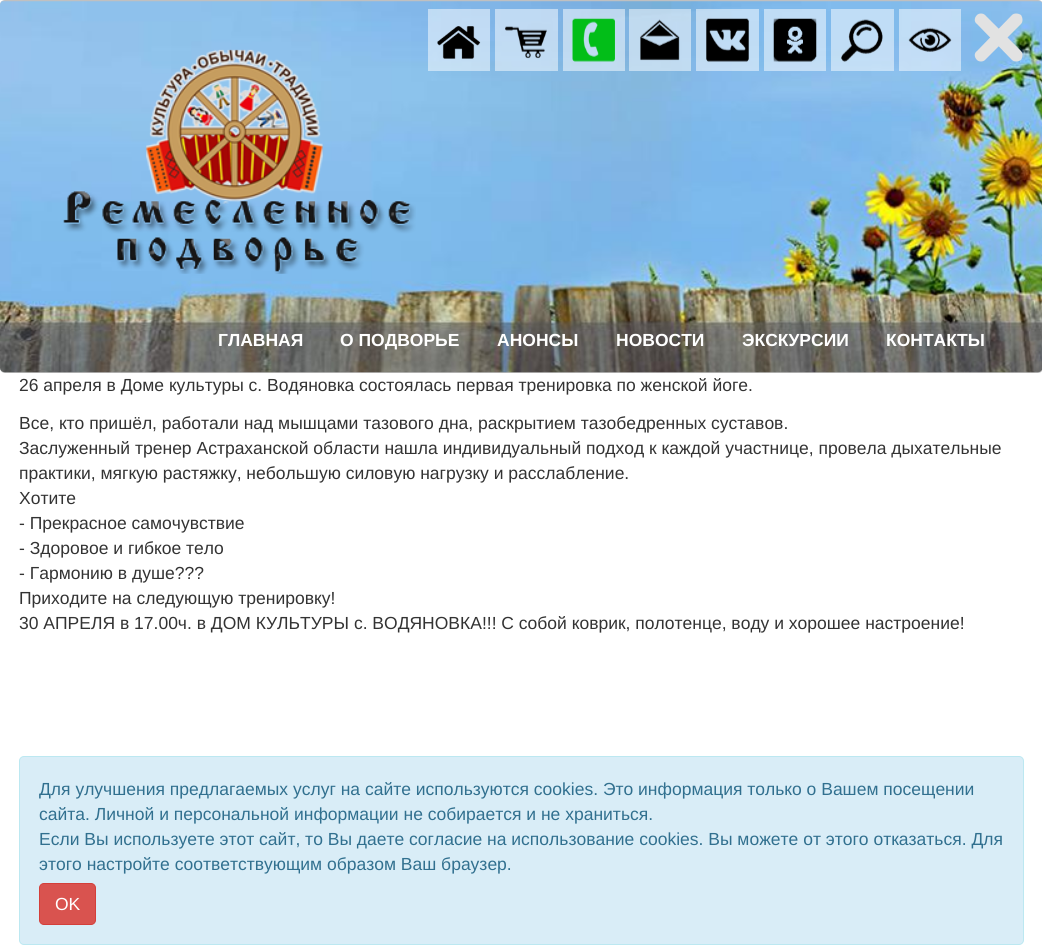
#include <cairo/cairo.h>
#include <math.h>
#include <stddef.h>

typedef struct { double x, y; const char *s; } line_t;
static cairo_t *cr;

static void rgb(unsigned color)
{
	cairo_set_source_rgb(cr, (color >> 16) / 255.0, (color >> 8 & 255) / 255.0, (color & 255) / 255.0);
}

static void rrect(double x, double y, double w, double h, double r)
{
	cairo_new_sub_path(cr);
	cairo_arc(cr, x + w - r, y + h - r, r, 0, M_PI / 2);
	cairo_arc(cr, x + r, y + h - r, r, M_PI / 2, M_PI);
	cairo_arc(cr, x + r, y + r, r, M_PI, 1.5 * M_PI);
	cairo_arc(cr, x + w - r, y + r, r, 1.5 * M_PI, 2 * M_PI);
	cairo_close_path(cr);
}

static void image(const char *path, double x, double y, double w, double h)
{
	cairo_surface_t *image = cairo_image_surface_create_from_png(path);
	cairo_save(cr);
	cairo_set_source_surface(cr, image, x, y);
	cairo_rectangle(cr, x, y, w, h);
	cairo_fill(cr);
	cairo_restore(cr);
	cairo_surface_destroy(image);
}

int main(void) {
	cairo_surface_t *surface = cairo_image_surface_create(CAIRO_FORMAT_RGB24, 1042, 945);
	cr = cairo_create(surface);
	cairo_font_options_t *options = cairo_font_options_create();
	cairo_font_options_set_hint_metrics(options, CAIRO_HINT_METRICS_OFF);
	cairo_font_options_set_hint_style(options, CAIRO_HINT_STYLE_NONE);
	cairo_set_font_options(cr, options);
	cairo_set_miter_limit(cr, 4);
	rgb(0xffffff);
	cairo_paint(cr);
	rgb(0xc0c0c0);
	rrect(0, 0, 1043, 373, 5);
	cairo_fill(cr);
	image("img/1.png", 0, 1, 1042, 372);
	image("img/2.png", 63, 49, 353, 225);
	cairo_set_source_rgba(cr, 1, 1, 1, 0.5);
	cairo_rectangle(cr, 428, 9, 62, 62);
	cairo_fill(cr);
	cairo_rectangle(cr, 495, 9, 63, 62);
	cairo_fill(cr);
	cairo_rectangle(cr, 563, 9, 62, 62);
	cairo_fill(cr);
	cairo_rectangle(cr, 629, 9, 62, 62);
	cairo_fill(cr);
	cairo_rectangle(cr, 696, 9, 63, 62);
	cairo_fill(cr);
	cairo_rectangle(cr, 764, 9, 62, 62);
	cairo_fill(cr);
	cairo_rectangle(cr, 831, 9, 63, 62);
	cairo_fill(cr);
	cairo_rectangle(cr, 899, 9, 62, 62);
	cairo_fill(cr);
	image("img/3.png", 437, 26, 44, 33);
	image("img/4.png", 505, 26, 42, 33);
	image("img/5.png", 572, 18, 43, 44);
	image("img/6.png", 640, 19, 40, 42);
	image("img/7.png", 706, 18, 43, 44);
	image("img/8.png", 773, 18, 44, 44);
	image("img/9.png", 841, 19, 42, 43);
	image("img/10.png", 908, 27, 44, 25);
	rgb(0xe2e2e2);
	cairo_new_path(cr);
	cairo_move_to(cr, 985, 15);
	cairo_line_to(cr, 1021, 51);
	cairo_curve_to(cr, 1023, 53, 1023, 57, 1021, 60);
	cairo_curve_to(cr, 1018, 62, 1014, 62, 1012, 60);
	cairo_line_to(cr, 977, 24);
	cairo_curve_to(cr, 974, 22, 974, 18, 977, 15);
	cairo_curve_to(cr, 979, 13, 983, 13, 985, 15);
	cairo_close_path(cr);
	cairo_fill(cr);
	cairo_new_path(cr);
	cairo_move_to(cr, 977, 51);
	cairo_line_to(cr, 1012, 15);
	cairo_curve_to(cr, 1014, 13, 1018, 13, 1021, 15);
	cairo_curve_to(cr, 1023, 18, 1023, 22, 1021, 24);
	cairo_line_to(cr, 985, 60);
	cairo_curve_to(cr, 983, 62, 979, 62, 977, 60);
	cairo_curve_to(cr, 974, 57, 974, 53, 977, 51);
	cairo_close_path(cr);
	cairo_fill(cr);
	rgb(0xd9edf7);
	rrect(19.5, 756.5, 1004, 188, 4.5);
	cairo_fill_preserve(cr);
	rgb(0xbce8f1);
	cairo_set_line_width(cr, 1);
	cairo_stroke(cr);
	rgb(0xd9534f);
	rrect(39.5, 883.5, 56, 41, 4.5);
	cairo_fill_preserve(cr);
	rgb(0xd43f3a);
	cairo_stroke(cr);
	cairo_select_font_face(cr, "Liberation Sans", CAIRO_FONT_SLANT_NORMAL, CAIRO_FONT_WEIGHT_BOLD);
	cairo_set_font_size(cr, 17.5);
	rgb(0xffffff);
	{
		static const line_t items[] = {
			{218, 346, "ГЛАВНАЯ"},
			{340, 346, "О ПОДВОРЬЕ"},
			{497, 346, "АНОНСЫ"},
			{616, 346, "НОВОСТИ"},
			{742, 346, "ЭКСКУРСИИ"},
			{886, 346, "КОНТАКТЫ"},
		};
		for (size_t i = 0; i < sizeof items / sizeof *items; i++) {
			cairo_move_to(cr, items[i].x, items[i].y);
			cairo_show_text(cr, items[i].s);
		}
	}
	cairo_select_font_face(cr, "Liberation Sans", CAIRO_FONT_SLANT_NORMAL, CAIRO_FONT_WEIGHT_NORMAL);
	rgb(0x333333);
	{
		static const line_t items[] = {
			{19, 391, "26 апреля в Доме культуры с. Водяновка состоялась первая тренировка по женской йоге."},
			{19, 429, "Все, кто пришёл, работали над мышцами тазового дна, раскрытием тазобедренных суставов."},
			{19, 454, "Заслуженный тренер Астраханской области нашла индивидуальный подход к каждой участнице, провела дыхательные"},
			{19, 479, "практики, мягкую растяжку, небольшую силовую нагрузку и расслабление."},
			{19, 504, "Хотите"},
			{19, 529, "- Прекрасное самочувствие"},
			{19, 554, "- Здоровое и гибкое тело"},
			{19, 579, "- Гармонию в душе?\077?"},
			{19, 604, "Приходите на следующую тренировку!"},
			{19, 629, "30 АПРЕЛЯ в 17.00ч. в ДОМ КУЛЬТУРЫ с. ВОДЯНОВКА!!! С собой коврик, полотенце, воду и хорошее настроение!"},
		};
		for (size_t i = 0; i < sizeof items / sizeof *items; i++) {
			cairo_move_to(cr, items[i].x, items[i].y);
			cairo_show_text(cr, items[i].s);
		}
	}
	rgb(0x31708f);
	{
		static const line_t items[] = {
			{39, 795, "Для улучшения предлагаемых услуг на сайте используются cookies. Это информация только о Вашем посещении"},
			{39, 820, "сайта. Личной и персональной информации не собирается и не храниться."},
			{39, 845, "Если Вы используете этот сайт, то Вы даете согласие на использование cookies. Вы можете от этого отказаться. Для"},
			{39, 870, "этого настройте соответствующим образом Ваш браузер."},
		};
		for (size_t i = 0; i < sizeof items / sizeof *items; i++) {
			cairo_move_to(cr, items[i].x, items[i].y);
			cairo_show_text(cr, items[i].s);
		}
	}
	rgb(0xffffff);
	cairo_move_to(cr, 55, 910);
	cairo_show_text(cr, "OK");
	cairo_surface_write_to_png(surface, "page.png");
	cairo_font_options_destroy(options);
	cairo_destroy(cr);
	cairo_surface_destroy(surface);
	return 0;
}
